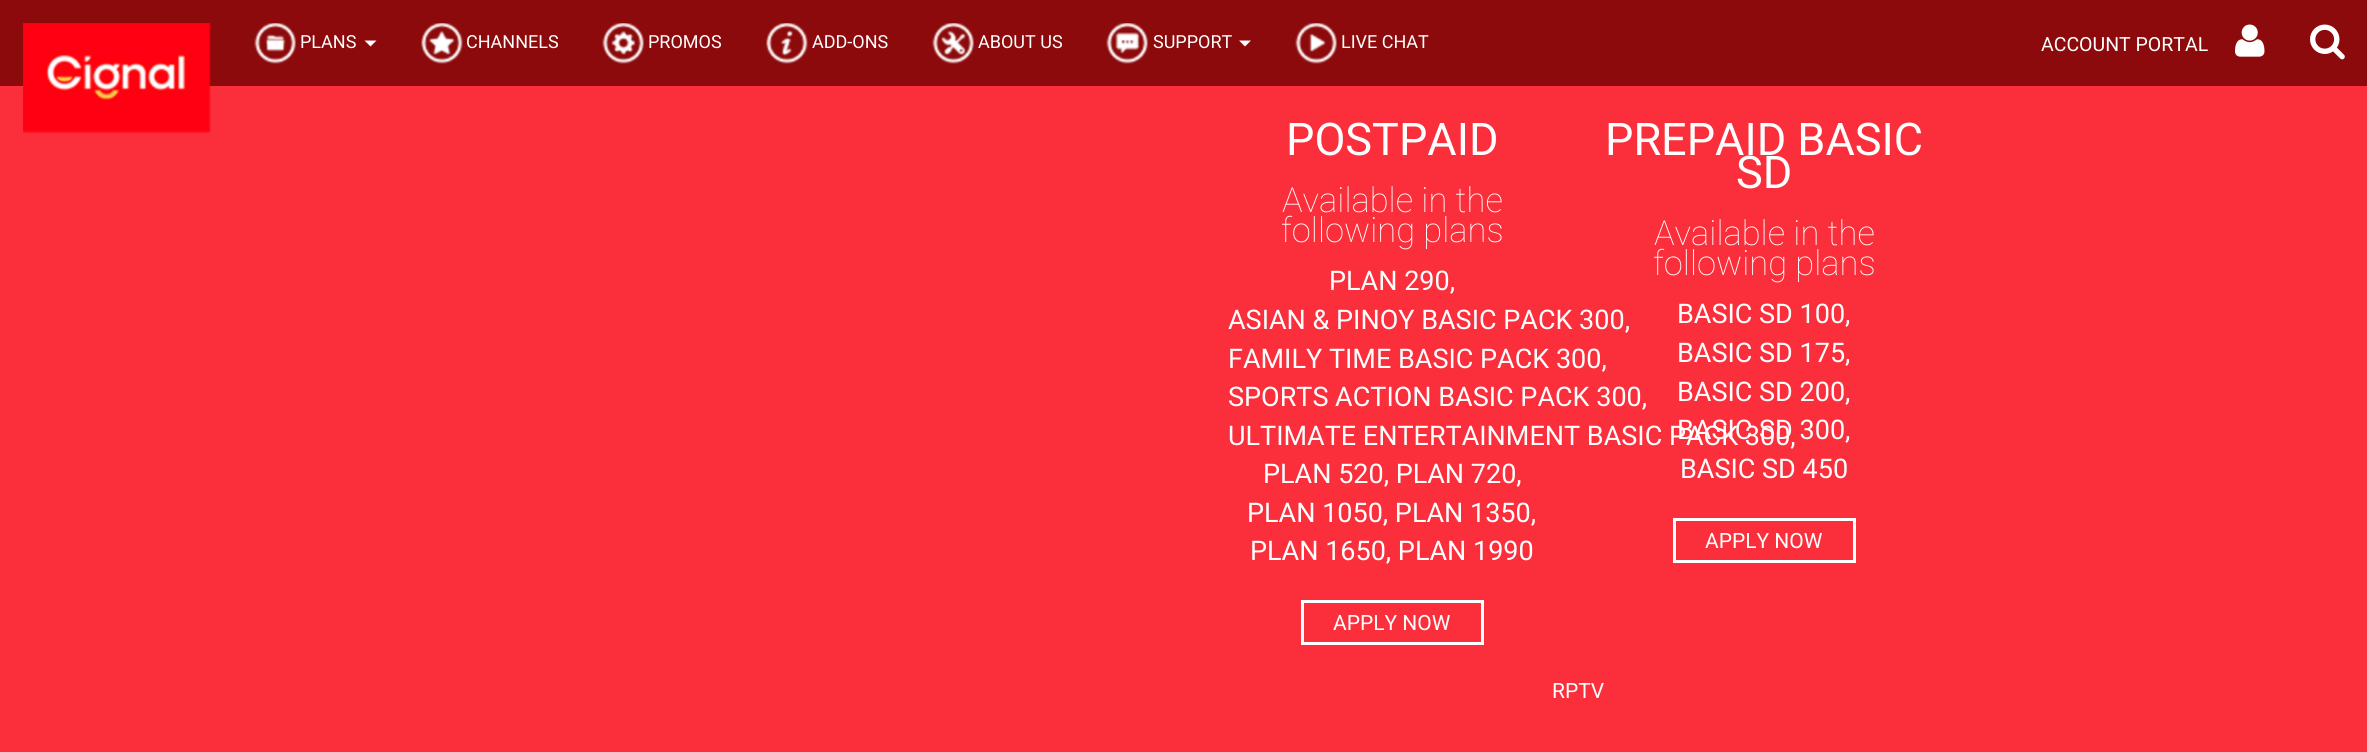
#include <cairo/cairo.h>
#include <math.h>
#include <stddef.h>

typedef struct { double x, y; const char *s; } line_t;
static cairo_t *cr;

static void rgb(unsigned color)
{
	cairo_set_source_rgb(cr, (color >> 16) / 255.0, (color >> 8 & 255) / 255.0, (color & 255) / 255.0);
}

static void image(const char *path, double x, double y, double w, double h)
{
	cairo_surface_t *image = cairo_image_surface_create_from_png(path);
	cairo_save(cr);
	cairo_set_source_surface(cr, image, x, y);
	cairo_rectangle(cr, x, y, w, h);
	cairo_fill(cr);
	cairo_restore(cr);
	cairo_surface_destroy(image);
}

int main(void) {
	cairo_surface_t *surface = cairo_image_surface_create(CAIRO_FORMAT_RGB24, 2367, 752);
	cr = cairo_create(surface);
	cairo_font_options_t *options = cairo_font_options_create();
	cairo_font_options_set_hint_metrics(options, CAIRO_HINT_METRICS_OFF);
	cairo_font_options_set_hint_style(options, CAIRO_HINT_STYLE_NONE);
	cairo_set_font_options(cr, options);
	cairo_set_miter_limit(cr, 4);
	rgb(0xfb2f3b);
	cairo_paint(cr);
	rgb(0x8c0a0b);
	cairo_rectangle(cr, 0, 0, 2367, 86);
	cairo_fill(cr);
	image("img/1.png", 23, 23, 188, 110);
	image("img/2.png", 254, 23, 42, 41);
	rgb(0xffffff);
	cairo_new_path(cr);
	cairo_move_to(cr, 364.5, 40.5);
	cairo_line_to(cr, 376.5, 40.5);
	cairo_line_to(cr, 370.5, 46.5);
	cairo_close_path(cr);
	cairo_fill(cr);
	image("img/3.png", 421, 23, 42, 41);
	image("img/4.png", 602, 23, 42, 41);
	image("img/5.png", 766, 23, 42, 41);
	image("img/6.png", 932, 23, 42, 41);
	image("img/7.png", 1106, 23, 42, 41);
	cairo_new_path(cr);
	cairo_move_to(cr, 1239, 40.5);
	cairo_line_to(cr, 1251, 40.5);
	cairo_line_to(cr, 1245, 46.5);
	cairo_close_path(cr);
	cairo_fill(cr);
	image("img/8.png", 1295, 23, 42, 41);
	image("img/9.png", 2235, 24, 30, 33);
	image("img/10.png", 2310, 24, 35, 36);
	cairo_rectangle(cr, 1302.5, 601.5, 180, 42);
	cairo_set_line_width(cr, 3);
	cairo_stroke(cr);
	cairo_rectangle(cr, 1674.5, 519.5, 180, 42);
	cairo_stroke(cr);
	cairo_select_font_face(cr, "Roboto", CAIRO_FONT_SLANT_NORMAL, CAIRO_FONT_WEIGHT_NORMAL);
	cairo_set_font_size(cr, 18);
	{
		static const line_t items[] = {
			{300, 48, "PLANS"},
			{466, 48, "CHANNELS"},
			{648, 48, "PROMOS"},
			{812, 48, "ADD-ONS"},
			{978, 48, "ABOUT US"},
			{1153, 48, "SUPPORT"},
			{1341, 48, "LIVE CHAT"},
		};
		for (size_t i = 0; i < sizeof items / sizeof *items; i++) {
			cairo_move_to(cr, items[i].x, items[i].y);
			cairo_show_text(cr, items[i].s);
		}
	}
	cairo_set_font_size(cr, 19.5);
	cairo_move_to(cr, 2041, 51);
	cairo_show_text(cr, "ACCOUNT PORTAL");
	cairo_set_font_size(cr, 45);
	cairo_move_to(cr, 1286, 155);
	cairo_show_text(cr, "POSTPAID");
	cairo_select_font_face(cr, "Roboto Thin", CAIRO_FONT_SLANT_NORMAL, CAIRO_FONT_WEIGHT_NORMAL);
	cairo_set_font_size(cr, 34.5);
	cairo_move_to(cr, 1282, 212);
	cairo_show_text(cr, "Available in the");
	cairo_move_to(cr, 1281, 242);
	cairo_show_text(cr, "following plans");
	cairo_select_font_face(cr, "Roboto", CAIRO_FONT_SLANT_NORMAL, CAIRO_FONT_WEIGHT_NORMAL);
	cairo_set_font_size(cr, 27);
	{
		static const line_t items[] = {
			{1329, 290, "PLAN 290,"},
			{1228, 329, "ASIAN & PINOY BASIC PACK 300,"},
			{1228, 368, "FAMILY TIME BASIC PACK 300,"},
			{1228, 406, "SPORTS ACTION BASIC PACK 300,"},
			{1228, 445, "ULTIMATE ENTERTAINMENT BASIC PACK 300,"},
			{1263, 483, "PLAN 520, PLAN 720,"},
			{1247, 522, "PLAN 1050, PLAN 1350,"},
			{1250, 560, "PLAN 1650, PLAN 1990"},
		};
		for (size_t i = 0; i < sizeof items / sizeof *items; i++) {
			cairo_move_to(cr, items[i].x, items[i].y);
			cairo_show_text(cr, items[i].s);
		}
	}
	cairo_set_font_size(cr, 21);
	cairo_move_to(cr, 1333, 630);
	cairo_show_text(cr, "APPLY NOW");
	cairo_set_font_size(cr, 45);
	cairo_move_to(cr, 1605, 155);
	cairo_show_text(cr, "PREPAID BASIC");
	cairo_move_to(cr, 1736, 188);
	cairo_show_text(cr, "SD");
	cairo_select_font_face(cr, "Roboto Thin", CAIRO_FONT_SLANT_NORMAL, CAIRO_FONT_WEIGHT_NORMAL);
	cairo_set_font_size(cr, 34.5);
	cairo_move_to(cr, 1654, 245);
	cairo_show_text(cr, "Available in the");
	cairo_move_to(cr, 1653, 275);
	cairo_show_text(cr, "following plans");
	cairo_select_font_face(cr, "Roboto", CAIRO_FONT_SLANT_NORMAL, CAIRO_FONT_WEIGHT_NORMAL);
	cairo_set_font_size(cr, 27);
	{
		static const line_t items[] = {
			{1677, 323, "BASIC SD 100,"},
			{1677, 362, "BASIC SD 175,"},
			{1677, 401, "BASIC SD 200,"},
			{1677, 439, "BASIC SD 300,"},
			{1680, 478, "BASIC SD 450"},
		};
		for (size_t i = 0; i < sizeof items / sizeof *items; i++) {
			cairo_move_to(cr, items[i].x, items[i].y);
			cairo_show_text(cr, items[i].s);
		}
	}
	cairo_set_font_size(cr, 21);
	cairo_move_to(cr, 1705, 548);
	cairo_show_text(cr, "APPLY NOW");
	cairo_move_to(cr, 1552, 698);
	cairo_show_text(cr, "RPTV");
	cairo_surface_write_to_png(surface, "page.png");
	cairo_font_options_destroy(options);
	cairo_destroy(cr);
	cairo_surface_destroy(surface);
	return 0;
}
